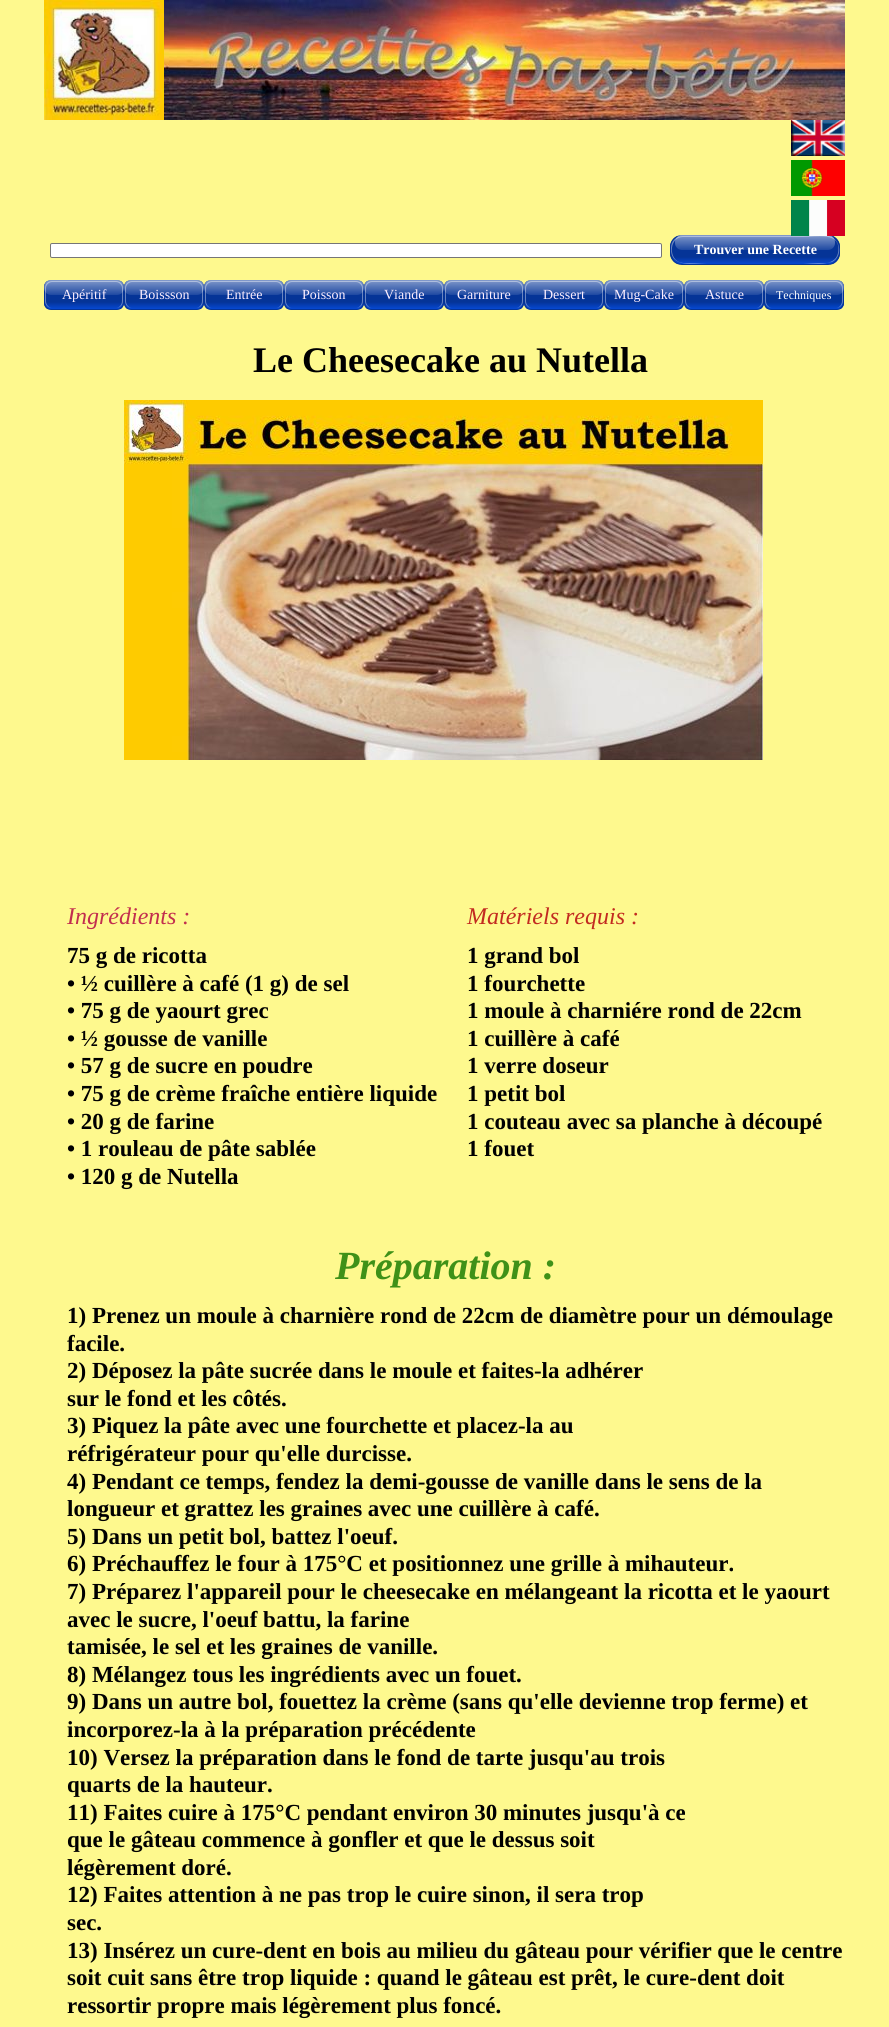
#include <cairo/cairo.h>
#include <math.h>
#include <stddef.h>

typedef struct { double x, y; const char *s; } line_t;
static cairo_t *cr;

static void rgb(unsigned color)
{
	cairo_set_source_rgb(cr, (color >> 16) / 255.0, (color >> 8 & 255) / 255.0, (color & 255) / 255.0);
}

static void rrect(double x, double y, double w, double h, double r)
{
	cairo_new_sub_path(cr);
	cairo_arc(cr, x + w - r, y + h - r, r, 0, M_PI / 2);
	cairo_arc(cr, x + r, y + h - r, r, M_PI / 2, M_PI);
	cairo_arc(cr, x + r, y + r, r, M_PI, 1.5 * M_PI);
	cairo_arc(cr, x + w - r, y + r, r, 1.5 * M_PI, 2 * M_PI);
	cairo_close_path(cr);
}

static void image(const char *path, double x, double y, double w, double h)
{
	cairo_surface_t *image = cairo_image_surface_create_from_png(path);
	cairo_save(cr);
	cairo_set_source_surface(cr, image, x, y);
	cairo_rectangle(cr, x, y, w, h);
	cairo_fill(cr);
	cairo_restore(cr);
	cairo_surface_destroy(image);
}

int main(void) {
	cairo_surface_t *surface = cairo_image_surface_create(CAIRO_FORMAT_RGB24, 889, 2027);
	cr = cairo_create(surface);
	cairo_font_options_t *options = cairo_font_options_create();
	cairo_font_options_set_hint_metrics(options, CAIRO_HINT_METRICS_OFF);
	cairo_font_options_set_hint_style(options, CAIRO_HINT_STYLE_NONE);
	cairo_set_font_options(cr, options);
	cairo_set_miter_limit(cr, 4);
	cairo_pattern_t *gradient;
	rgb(0xfef98e);
	cairo_paint(cr);
	image("img/1.png", 44, 0, 120, 120);
	image("img/2.png", 164, 0, 681, 120);
	image("img/3.png", 791, 120, 54, 36);
	image("img/4.png", 791, 160, 54, 36);
	cairo_save(cr);
	rrect(670, 235, 170, 30, 12);
	cairo_clip(cr);
	gradient = cairo_pattern_create_linear(671, 257, 671, 266);
	cairo_pattern_add_color_stop_rgba(gradient, 0, 0.02, 0.204, 0.592, 1);
	cairo_pattern_add_color_stop_rgba(gradient, 1, 0.027, 0.306, 0.89, 1);
	cairo_set_source(cr, gradient);
	cairo_pattern_destroy(gradient);
	cairo_rectangle(cr, 670, 236, 170, 28);
	cairo_fill(cr);
	cairo_restore(cr);
	rrect(670.5, 235.5, 169, 29, 11.5);
	rgb(0x053497);
	cairo_set_line_width(cr, 1);
	cairo_stroke(cr);
	cairo_set_source_rgba(cr, 1, 1, 1, 0.4);
	cairo_set_fill_rule(cr, CAIRO_FILL_RULE_EVEN_ODD);
	cairo_new_path(cr);
	cairo_move_to(cr, 683, 236);
	cairo_line_to(cr, 829, 236);
	cairo_curve_to(cr, 841, 239, 843, 257, 832, 262);
	cairo_line_to(cr, 827, 263);
	cairo_line_to(cr, 707, 263);
	cairo_curve_to(cr, 694, 263, 670, 269, 671, 248);
	cairo_curve_to(cr, 671, 241, 676, 236, 683, 236);
	cairo_close_path(cr);
	cairo_move_to(cr, 683, 237);
	cairo_line_to(cr, 803, 237);
	cairo_curve_to(cr, 816, 237, 842, 231, 838, 253);
	cairo_curve_to(cr, 835, 268, 812, 263, 803, 263);
	cairo_line_to(cr, 683, 263);
	cairo_line_to(cr, 679, 262);
	cairo_curve_to(cr, 668, 257, 670, 237, 683, 237);
	cairo_close_path(cr);
	cairo_fill(cr);
	gradient = cairo_pattern_create_linear(675, 235, 675, 250);
	cairo_pattern_add_color_stop_rgba(gradient, 0, 1, 1, 1, 0.5);
	cairo_pattern_add_color_stop_rgba(gradient, 1, 1, 1, 1, 0.1);
	cairo_set_source(cr, gradient);
	cairo_pattern_destroy(gradient);
	rrect(675, 235, 160, 15, 7);
	cairo_fill(cr);
	image("img/5.png", 791, 200, 54, 36);
	rgb(0xffffff);
	rrect(50.5, 243.5, 611, 14, 1.5);
	cairo_fill_preserve(cr);
	rgb(0x767676);
	cairo_stroke(cr);
	cairo_save(cr);
	cairo_set_fill_rule(cr, CAIRO_FILL_RULE_WINDING);
	rrect(44, 280, 80, 30, 7);
	cairo_clip(cr);
	gradient = cairo_pattern_create_linear(45, 302, 45, 311);
	cairo_pattern_add_color_stop_rgba(gradient, 0, 0.02, 0.204, 0.592, 1);
	cairo_pattern_add_color_stop_rgba(gradient, 1, 0.027, 0.306, 0.89, 1);
	cairo_set_source(cr, gradient);
	cairo_pattern_destroy(gradient);
	cairo_rectangle(cr, 44, 281, 80, 28);
	cairo_fill(cr);
	cairo_restore(cr);
	rrect(44.5, 280.5, 79, 29, 6.5);
	rgb(0x053497);
	cairo_stroke(cr);
	cairo_set_source_rgba(cr, 1, 1, 1, 0.4);
	cairo_new_path(cr);
	cairo_move_to(cr, 52, 281);
	cairo_line_to(cr, 116, 281);
	cairo_curve_to(cr, 120, 281, 123, 284, 123, 288);
	cairo_line_to(cr, 123, 301);
	cairo_curve_to(cr, 123, 305, 120, 308, 116, 308);
	cairo_line_to(cr, 52, 308);
	cairo_curve_to(cr, 48, 308, 45, 305, 45, 301);
	cairo_line_to(cr, 45, 288);
	cairo_curve_to(cr, 45, 284, 48, 281, 52, 281);
	cairo_close_path(cr);
	cairo_move_to(cr, 52, 282);
	cairo_line_to(cr, 116, 282);
	cairo_curve_to(cr, 119, 282, 122, 285, 122, 288);
	cairo_line_to(cr, 122, 301);
	cairo_curve_to(cr, 122, 305, 119, 308, 116, 308);
	cairo_line_to(cr, 52, 308);
	cairo_curve_to(cr, 49, 308, 46, 305, 46, 301);
	cairo_line_to(cr, 46, 288);
	cairo_curve_to(cr, 46, 285, 49, 282, 52, 282);
	cairo_close_path(cr);
	cairo_fill(cr);
	gradient = cairo_pattern_create_linear(44, 280, 44, 295);
	cairo_pattern_add_color_stop_rgba(gradient, 0, 1, 1, 1, 0.5);
	cairo_pattern_add_color_stop_rgba(gradient, 1, 1, 1, 1, 0.1);
	cairo_set_source(cr, gradient);
	cairo_pattern_destroy(gradient);
	rrect(44, 280, 80, 15, 7);
	cairo_fill(cr);
	cairo_save(cr);
	cairo_set_fill_rule(cr, CAIRO_FILL_RULE_WINDING);
	rrect(124, 280, 80, 30, 7);
	cairo_clip(cr);
	gradient = cairo_pattern_create_linear(125, 302, 125, 311);
	cairo_pattern_add_color_stop_rgba(gradient, 0, 0.02, 0.204, 0.592, 1);
	cairo_pattern_add_color_stop_rgba(gradient, 1, 0.027, 0.306, 0.89, 1);
	cairo_set_source(cr, gradient);
	cairo_pattern_destroy(gradient);
	cairo_rectangle(cr, 124, 281, 80, 28);
	cairo_fill(cr);
	cairo_restore(cr);
	rrect(124.5, 280.5, 79, 29, 6.5);
	rgb(0x053497);
	cairo_stroke(cr);
	cairo_set_source_rgba(cr, 1, 1, 1, 0.4);
	cairo_new_path(cr);
	cairo_move_to(cr, 132, 281);
	cairo_line_to(cr, 196, 281);
	cairo_curve_to(cr, 200, 281, 203, 284, 203, 288);
	cairo_line_to(cr, 203, 301);
	cairo_curve_to(cr, 203, 305, 200, 308, 196, 308);
	cairo_line_to(cr, 132, 308);
	cairo_curve_to(cr, 128, 308, 125, 305, 125, 301);
	cairo_line_to(cr, 125, 288);
	cairo_curve_to(cr, 125, 284, 128, 281, 132, 281);
	cairo_close_path(cr);
	cairo_move_to(cr, 132, 282);
	cairo_line_to(cr, 196, 282);
	cairo_curve_to(cr, 199, 282, 202, 285, 202, 288);
	cairo_line_to(cr, 202, 301);
	cairo_curve_to(cr, 202, 305, 199, 308, 196, 308);
	cairo_line_to(cr, 132, 308);
	cairo_curve_to(cr, 129, 308, 126, 305, 126, 301);
	cairo_line_to(cr, 126, 288);
	cairo_curve_to(cr, 126, 285, 129, 282, 132, 282);
	cairo_close_path(cr);
	cairo_fill(cr);
	gradient = cairo_pattern_create_linear(124, 280, 124, 295);
	cairo_pattern_add_color_stop_rgba(gradient, 0, 1, 1, 1, 0.5);
	cairo_pattern_add_color_stop_rgba(gradient, 1, 1, 1, 1, 0.1);
	cairo_set_source(cr, gradient);
	cairo_pattern_destroy(gradient);
	rrect(124, 280, 80, 15, 7);
	cairo_fill(cr);
	cairo_save(cr);
	cairo_set_fill_rule(cr, CAIRO_FILL_RULE_WINDING);
	rrect(204, 280, 80, 30, 7);
	cairo_clip(cr);
	gradient = cairo_pattern_create_linear(205, 302, 205, 311);
	cairo_pattern_add_color_stop_rgba(gradient, 0, 0.02, 0.204, 0.592, 1);
	cairo_pattern_add_color_stop_rgba(gradient, 1, 0.027, 0.306, 0.89, 1);
	cairo_set_source(cr, gradient);
	cairo_pattern_destroy(gradient);
	cairo_rectangle(cr, 204, 281, 80, 28);
	cairo_fill(cr);
	cairo_restore(cr);
	rrect(204.5, 280.5, 79, 29, 6.5);
	rgb(0x053497);
	cairo_stroke(cr);
	cairo_set_source_rgba(cr, 1, 1, 1, 0.4);
	cairo_new_path(cr);
	cairo_move_to(cr, 212, 281);
	cairo_line_to(cr, 276, 281);
	cairo_curve_to(cr, 280, 281, 283, 284, 283, 288);
	cairo_line_to(cr, 283, 301);
	cairo_curve_to(cr, 283, 305, 280, 308, 276, 308);
	cairo_line_to(cr, 212, 308);
	cairo_curve_to(cr, 208, 308, 205, 305, 205, 301);
	cairo_line_to(cr, 205, 288);
	cairo_curve_to(cr, 205, 284, 208, 281, 212, 281);
	cairo_close_path(cr);
	cairo_move_to(cr, 212, 282);
	cairo_line_to(cr, 276, 282);
	cairo_curve_to(cr, 279, 282, 282, 285, 282, 288);
	cairo_line_to(cr, 282, 301);
	cairo_curve_to(cr, 282, 305, 279, 308, 276, 308);
	cairo_line_to(cr, 212, 308);
	cairo_curve_to(cr, 209, 308, 206, 305, 206, 301);
	cairo_line_to(cr, 206, 288);
	cairo_curve_to(cr, 206, 285, 209, 282, 212, 282);
	cairo_close_path(cr);
	cairo_fill(cr);
	gradient = cairo_pattern_create_linear(204, 280, 204, 295);
	cairo_pattern_add_color_stop_rgba(gradient, 0, 1, 1, 1, 0.5);
	cairo_pattern_add_color_stop_rgba(gradient, 1, 1, 1, 1, 0.1);
	cairo_set_source(cr, gradient);
	cairo_pattern_destroy(gradient);
	rrect(204, 280, 80, 15, 7);
	cairo_fill(cr);
	cairo_save(cr);
	cairo_set_fill_rule(cr, CAIRO_FILL_RULE_WINDING);
	rrect(284, 280, 80, 30, 7);
	cairo_clip(cr);
	gradient = cairo_pattern_create_linear(285, 302, 285, 311);
	cairo_pattern_add_color_stop_rgba(gradient, 0, 0.02, 0.204, 0.592, 1);
	cairo_pattern_add_color_stop_rgba(gradient, 1, 0.027, 0.306, 0.89, 1);
	cairo_set_source(cr, gradient);
	cairo_pattern_destroy(gradient);
	cairo_rectangle(cr, 284, 281, 80, 28);
	cairo_fill(cr);
	cairo_restore(cr);
	rrect(284.5, 280.5, 79, 29, 6.5);
	rgb(0x053497);
	cairo_stroke(cr);
	cairo_set_source_rgba(cr, 1, 1, 1, 0.4);
	cairo_new_path(cr);
	cairo_move_to(cr, 292, 281);
	cairo_line_to(cr, 356, 281);
	cairo_curve_to(cr, 360, 281, 363, 284, 363, 288);
	cairo_line_to(cr, 363, 301);
	cairo_curve_to(cr, 363, 305, 360, 308, 356, 308);
	cairo_line_to(cr, 292, 308);
	cairo_curve_to(cr, 288, 308, 285, 305, 285, 301);
	cairo_line_to(cr, 285, 288);
	cairo_curve_to(cr, 285, 284, 288, 281, 292, 281);
	cairo_close_path(cr);
	cairo_move_to(cr, 292, 282);
	cairo_line_to(cr, 356, 282);
	cairo_curve_to(cr, 359, 282, 362, 285, 362, 288);
	cairo_line_to(cr, 362, 301);
	cairo_curve_to(cr, 362, 305, 359, 308, 356, 308);
	cairo_line_to(cr, 292, 308);
	cairo_curve_to(cr, 289, 308, 286, 305, 286, 301);
	cairo_line_to(cr, 286, 288);
	cairo_curve_to(cr, 286, 285, 289, 282, 292, 282);
	cairo_close_path(cr);
	cairo_fill(cr);
	gradient = cairo_pattern_create_linear(284, 280, 284, 295);
	cairo_pattern_add_color_stop_rgba(gradient, 0, 1, 1, 1, 0.5);
	cairo_pattern_add_color_stop_rgba(gradient, 1, 1, 1, 1, 0.1);
	cairo_set_source(cr, gradient);
	cairo_pattern_destroy(gradient);
	rrect(284, 280, 80, 15, 7);
	cairo_fill(cr);
	cairo_save(cr);
	cairo_set_fill_rule(cr, CAIRO_FILL_RULE_WINDING);
	rrect(364, 280, 80, 30, 7);
	cairo_clip(cr);
	gradient = cairo_pattern_create_linear(365, 302, 365, 311);
	cairo_pattern_add_color_stop_rgba(gradient, 0, 0.02, 0.204, 0.592, 1);
	cairo_pattern_add_color_stop_rgba(gradient, 1, 0.027, 0.306, 0.89, 1);
	cairo_set_source(cr, gradient);
	cairo_pattern_destroy(gradient);
	cairo_rectangle(cr, 364, 281, 80, 28);
	cairo_fill(cr);
	cairo_restore(cr);
	rrect(364.5, 280.5, 79, 29, 6.5);
	rgb(0x053497);
	cairo_stroke(cr);
	cairo_set_source_rgba(cr, 1, 1, 1, 0.4);
	cairo_new_path(cr);
	cairo_move_to(cr, 372, 281);
	cairo_line_to(cr, 436, 281);
	cairo_curve_to(cr, 440, 281, 443, 284, 443, 288);
	cairo_line_to(cr, 443, 301);
	cairo_curve_to(cr, 443, 305, 440, 308, 436, 308);
	cairo_line_to(cr, 372, 308);
	cairo_curve_to(cr, 368, 308, 365, 305, 365, 301);
	cairo_line_to(cr, 365, 288);
	cairo_curve_to(cr, 365, 284, 368, 281, 372, 281);
	cairo_close_path(cr);
	cairo_move_to(cr, 372, 282);
	cairo_line_to(cr, 436, 282);
	cairo_curve_to(cr, 439, 282, 442, 285, 442, 288);
	cairo_line_to(cr, 442, 301);
	cairo_curve_to(cr, 442, 305, 439, 308, 436, 308);
	cairo_line_to(cr, 372, 308);
	cairo_curve_to(cr, 369, 308, 366, 305, 366, 301);
	cairo_line_to(cr, 366, 288);
	cairo_curve_to(cr, 366, 285, 369, 282, 372, 282);
	cairo_close_path(cr);
	cairo_fill(cr);
	gradient = cairo_pattern_create_linear(364, 280, 364, 295);
	cairo_pattern_add_color_stop_rgba(gradient, 0, 1, 1, 1, 0.5);
	cairo_pattern_add_color_stop_rgba(gradient, 1, 1, 1, 1, 0.1);
	cairo_set_source(cr, gradient);
	cairo_pattern_destroy(gradient);
	rrect(364, 280, 80, 15, 7);
	cairo_fill(cr);
	cairo_save(cr);
	cairo_set_fill_rule(cr, CAIRO_FILL_RULE_WINDING);
	rrect(444, 280, 80, 30, 7);
	cairo_clip(cr);
	gradient = cairo_pattern_create_linear(445, 302, 445, 311);
	cairo_pattern_add_color_stop_rgba(gradient, 0, 0.02, 0.204, 0.592, 1);
	cairo_pattern_add_color_stop_rgba(gradient, 1, 0.027, 0.306, 0.89, 1);
	cairo_set_source(cr, gradient);
	cairo_pattern_destroy(gradient);
	cairo_rectangle(cr, 444, 281, 80, 28);
	cairo_fill(cr);
	cairo_restore(cr);
	rrect(444.5, 280.5, 79, 29, 6.5);
	rgb(0x053497);
	cairo_stroke(cr);
	cairo_set_source_rgba(cr, 1, 1, 1, 0.4);
	cairo_new_path(cr);
	cairo_move_to(cr, 452, 281);
	cairo_line_to(cr, 516, 281);
	cairo_curve_to(cr, 520, 281, 523, 284, 523, 288);
	cairo_line_to(cr, 523, 301);
	cairo_curve_to(cr, 523, 305, 520, 308, 516, 308);
	cairo_line_to(cr, 452, 308);
	cairo_curve_to(cr, 448, 308, 445, 305, 445, 301);
	cairo_line_to(cr, 445, 288);
	cairo_curve_to(cr, 445, 284, 448, 281, 452, 281);
	cairo_close_path(cr);
	cairo_move_to(cr, 452, 282);
	cairo_line_to(cr, 516, 282);
	cairo_curve_to(cr, 519, 282, 522, 285, 522, 288);
	cairo_line_to(cr, 522, 301);
	cairo_curve_to(cr, 522, 305, 519, 308, 516, 308);
	cairo_line_to(cr, 452, 308);
	cairo_curve_to(cr, 449, 308, 446, 305, 446, 301);
	cairo_line_to(cr, 446, 288);
	cairo_curve_to(cr, 446, 285, 449, 282, 452, 282);
	cairo_close_path(cr);
	cairo_fill(cr);
	gradient = cairo_pattern_create_linear(444, 280, 444, 295);
	cairo_pattern_add_color_stop_rgba(gradient, 0, 1, 1, 1, 0.5);
	cairo_pattern_add_color_stop_rgba(gradient, 1, 1, 1, 1, 0.1);
	cairo_set_source(cr, gradient);
	cairo_pattern_destroy(gradient);
	rrect(444, 280, 80, 15, 7);
	cairo_fill(cr);
	cairo_save(cr);
	cairo_set_fill_rule(cr, CAIRO_FILL_RULE_WINDING);
	rrect(524, 280, 80, 30, 7);
	cairo_clip(cr);
	gradient = cairo_pattern_create_linear(525, 302, 525, 311);
	cairo_pattern_add_color_stop_rgba(gradient, 0, 0.02, 0.204, 0.592, 1);
	cairo_pattern_add_color_stop_rgba(gradient, 1, 0.027, 0.306, 0.89, 1);
	cairo_set_source(cr, gradient);
	cairo_pattern_destroy(gradient);
	cairo_rectangle(cr, 524, 281, 80, 28);
	cairo_fill(cr);
	cairo_restore(cr);
	rrect(524.5, 280.5, 79, 29, 6.5);
	rgb(0x053497);
	cairo_stroke(cr);
	cairo_set_source_rgba(cr, 1, 1, 1, 0.4);
	cairo_new_path(cr);
	cairo_move_to(cr, 532, 281);
	cairo_line_to(cr, 596, 281);
	cairo_curve_to(cr, 600, 281, 603, 284, 603, 288);
	cairo_line_to(cr, 603, 301);
	cairo_curve_to(cr, 603, 305, 600, 308, 596, 308);
	cairo_line_to(cr, 532, 308);
	cairo_curve_to(cr, 528, 308, 525, 305, 525, 301);
	cairo_line_to(cr, 525, 288);
	cairo_curve_to(cr, 525, 284, 528, 281, 532, 281);
	cairo_close_path(cr);
	cairo_move_to(cr, 532, 282);
	cairo_line_to(cr, 596, 282);
	cairo_curve_to(cr, 599, 282, 602, 285, 602, 288);
	cairo_line_to(cr, 602, 301);
	cairo_curve_to(cr, 602, 305, 599, 308, 596, 308);
	cairo_line_to(cr, 532, 308);
	cairo_curve_to(cr, 529, 308, 526, 305, 526, 301);
	cairo_line_to(cr, 526, 288);
	cairo_curve_to(cr, 526, 285, 529, 282, 532, 282);
	cairo_close_path(cr);
	cairo_fill(cr);
	gradient = cairo_pattern_create_linear(524, 280, 524, 295);
	cairo_pattern_add_color_stop_rgba(gradient, 0, 1, 1, 1, 0.5);
	cairo_pattern_add_color_stop_rgba(gradient, 1, 1, 1, 1, 0.1);
	cairo_set_source(cr, gradient);
	cairo_pattern_destroy(gradient);
	rrect(524, 280, 80, 15, 7);
	cairo_fill(cr);
	cairo_save(cr);
	cairo_set_fill_rule(cr, CAIRO_FILL_RULE_WINDING);
	rrect(604, 280, 80, 30, 7);
	cairo_clip(cr);
	gradient = cairo_pattern_create_linear(605, 302, 605, 311);
	cairo_pattern_add_color_stop_rgba(gradient, 0, 0.02, 0.204, 0.592, 1);
	cairo_pattern_add_color_stop_rgba(gradient, 1, 0.027, 0.306, 0.89, 1);
	cairo_set_source(cr, gradient);
	cairo_pattern_destroy(gradient);
	cairo_rectangle(cr, 604, 281, 80, 28);
	cairo_fill(cr);
	cairo_restore(cr);
	rrect(604.5, 280.5, 79, 29, 6.5);
	rgb(0x053497);
	cairo_stroke(cr);
	cairo_set_source_rgba(cr, 1, 1, 1, 0.4);
	cairo_new_path(cr);
	cairo_move_to(cr, 612, 281);
	cairo_line_to(cr, 676, 281);
	cairo_curve_to(cr, 680, 281, 683, 284, 683, 288);
	cairo_line_to(cr, 683, 301);
	cairo_curve_to(cr, 683, 305, 680, 308, 676, 308);
	cairo_line_to(cr, 612, 308);
	cairo_curve_to(cr, 608, 308, 605, 305, 605, 301);
	cairo_line_to(cr, 605, 288);
	cairo_curve_to(cr, 605, 284, 608, 281, 612, 281);
	cairo_close_path(cr);
	cairo_move_to(cr, 612, 282);
	cairo_line_to(cr, 676, 282);
	cairo_curve_to(cr, 679, 282, 682, 285, 682, 288);
	cairo_line_to(cr, 682, 301);
	cairo_curve_to(cr, 682, 305, 679, 308, 676, 308);
	cairo_line_to(cr, 612, 308);
	cairo_curve_to(cr, 609, 308, 606, 305, 606, 301);
	cairo_line_to(cr, 606, 288);
	cairo_curve_to(cr, 606, 285, 609, 282, 612, 282);
	cairo_close_path(cr);
	cairo_fill(cr);
	gradient = cairo_pattern_create_linear(604, 280, 604, 295);
	cairo_pattern_add_color_stop_rgba(gradient, 0, 1, 1, 1, 0.5);
	cairo_pattern_add_color_stop_rgba(gradient, 1, 1, 1, 1, 0.1);
	cairo_set_source(cr, gradient);
	cairo_pattern_destroy(gradient);
	rrect(604, 280, 80, 15, 7);
	cairo_fill(cr);
	cairo_save(cr);
	cairo_set_fill_rule(cr, CAIRO_FILL_RULE_WINDING);
	rrect(684, 280, 80, 30, 7);
	cairo_clip(cr);
	gradient = cairo_pattern_create_linear(685, 302, 685, 311);
	cairo_pattern_add_color_stop_rgba(gradient, 0, 0.02, 0.204, 0.592, 1);
	cairo_pattern_add_color_stop_rgba(gradient, 1, 0.027, 0.306, 0.89, 1);
	cairo_set_source(cr, gradient);
	cairo_pattern_destroy(gradient);
	cairo_rectangle(cr, 684, 281, 80, 28);
	cairo_fill(cr);
	cairo_restore(cr);
	rrect(684.5, 280.5, 79, 29, 6.5);
	rgb(0x053497);
	cairo_stroke(cr);
	cairo_set_source_rgba(cr, 1, 1, 1, 0.4);
	cairo_new_path(cr);
	cairo_move_to(cr, 692, 281);
	cairo_line_to(cr, 756, 281);
	cairo_curve_to(cr, 760, 281, 763, 284, 763, 288);
	cairo_line_to(cr, 763, 301);
	cairo_curve_to(cr, 763, 305, 760, 308, 756, 308);
	cairo_line_to(cr, 692, 308);
	cairo_curve_to(cr, 688, 308, 685, 305, 685, 301);
	cairo_line_to(cr, 685, 288);
	cairo_curve_to(cr, 685, 284, 688, 281, 692, 281);
	cairo_close_path(cr);
	cairo_move_to(cr, 692, 282);
	cairo_line_to(cr, 756, 282);
	cairo_curve_to(cr, 759, 282, 762, 285, 762, 288);
	cairo_line_to(cr, 762, 301);
	cairo_curve_to(cr, 762, 305, 759, 308, 756, 308);
	cairo_line_to(cr, 692, 308);
	cairo_curve_to(cr, 689, 308, 686, 305, 686, 301);
	cairo_line_to(cr, 686, 288);
	cairo_curve_to(cr, 686, 285, 689, 282, 692, 282);
	cairo_close_path(cr);
	cairo_fill(cr);
	gradient = cairo_pattern_create_linear(684, 280, 684, 295);
	cairo_pattern_add_color_stop_rgba(gradient, 0, 1, 1, 1, 0.5);
	cairo_pattern_add_color_stop_rgba(gradient, 1, 1, 1, 1, 0.1);
	cairo_set_source(cr, gradient);
	cairo_pattern_destroy(gradient);
	rrect(684, 280, 80, 15, 7);
	cairo_fill(cr);
	cairo_save(cr);
	cairo_set_fill_rule(cr, CAIRO_FILL_RULE_WINDING);
	rrect(764, 280, 80, 30, 7);
	cairo_clip(cr);
	gradient = cairo_pattern_create_linear(765, 302, 765, 311);
	cairo_pattern_add_color_stop_rgba(gradient, 0, 0.012, 0.204, 0.592, 1);
	cairo_pattern_add_color_stop_rgba(gradient, 1, 0.016, 0.306, 0.89, 1);
	cairo_set_source(cr, gradient);
	cairo_pattern_destroy(gradient);
	cairo_rectangle(cr, 764, 281, 80, 28);
	cairo_fill(cr);
	cairo_restore(cr);
	rrect(764.5, 280.5, 79, 29, 6.5);
	rgb(0x033497);
	cairo_stroke(cr);
	cairo_set_source_rgba(cr, 1, 1, 1, 0.4);
	cairo_new_path(cr);
	cairo_move_to(cr, 772, 281);
	cairo_line_to(cr, 836, 281);
	cairo_curve_to(cr, 840, 281, 843, 284, 843, 288);
	cairo_line_to(cr, 843, 301);
	cairo_curve_to(cr, 843, 305, 840, 308, 836, 308);
	cairo_line_to(cr, 772, 308);
	cairo_curve_to(cr, 768, 308, 765, 305, 765, 301);
	cairo_line_to(cr, 765, 288);
	cairo_curve_to(cr, 765, 284, 768, 281, 772, 281);
	cairo_close_path(cr);
	cairo_move_to(cr, 772, 282);
	cairo_line_to(cr, 836, 282);
	cairo_curve_to(cr, 839, 282, 842, 285, 842, 288);
	cairo_line_to(cr, 842, 301);
	cairo_curve_to(cr, 842, 305, 839, 308, 836, 308);
	cairo_line_to(cr, 772, 308);
	cairo_curve_to(cr, 769, 308, 766, 305, 766, 301);
	cairo_line_to(cr, 766, 288);
	cairo_curve_to(cr, 766, 285, 769, 282, 772, 282);
	cairo_close_path(cr);
	cairo_fill(cr);
	gradient = cairo_pattern_create_linear(764, 280, 764, 295);
	cairo_pattern_add_color_stop_rgba(gradient, 0, 1, 1, 1, 0.5);
	cairo_pattern_add_color_stop_rgba(gradient, 1, 1, 1, 1, 0.1);
	cairo_set_source(cr, gradient);
	cairo_pattern_destroy(gradient);
	rrect(764, 280, 80, 15, 7);
	cairo_fill(cr);
	image("img/6.png", 124, 400, 639, 360);
	cairo_select_font_face(cr, "Liberation Serif", CAIRO_FONT_SLANT_NORMAL, CAIRO_FONT_WEIGHT_BOLD);
	cairo_set_font_size(cr, 14);
	rgb(0xffffff);
	cairo_move_to(cr, 694, 254);
	cairo_show_text(cr, "Trouver une Recette");
	cairo_select_font_face(cr, "Liberation Serif", CAIRO_FONT_SLANT_NORMAL, CAIRO_FONT_WEIGHT_NORMAL);
	rgb(0xfdefff);
	{
		static const line_t items[] = {
			{62, 299, "Apéritif"},
			{139, 299, "Boissson"},
			{226, 299, "Entrée"},
			{302, 299, "Poisson"},
			{384, 299, "Viande"},
			{457, 299, "Garniture"},
			{543, 299, "Dessert"},
			{614, 299, "Mug-Cake"},
			{705, 299, "Astuce"},
		};
		for (size_t i = 0; i < sizeof items / sizeof *items; i++) {
			cairo_move_to(cr, items[i].x, items[i].y);
			cairo_show_text(cr, items[i].s);
		}
	}
	cairo_set_font_size(cr, 12);
	rgb(0xffffff);
	cairo_move_to(cr, 776, 299);
	cairo_show_text(cr, "Techniques");
	cairo_select_font_face(cr, "Liberation Serif", CAIRO_FONT_SLANT_NORMAL, CAIRO_FONT_WEIGHT_BOLD);
	cairo_set_font_size(cr, 36);
	rgb(0x000000);
	cairo_move_to(cr, 253, 372);
	cairo_show_text(cr, "Le Cheesecake au Nutella");
	cairo_select_font_face(cr, "Liberation Serif", CAIRO_FONT_SLANT_ITALIC, CAIRO_FONT_WEIGHT_NORMAL);
	cairo_set_font_size(cr, 24);
	rgb(0xc22e4e);
	cairo_move_to(cr, 67, 924);
	cairo_show_text(cr, "Ingrédients :");
	rgb(0xc22a20);
	cairo_move_to(cr, 467, 924);
	cairo_show_text(cr, "Matériels requis :");
	cairo_select_font_face(cr, "Liberation Serif", CAIRO_FONT_SLANT_NORMAL, CAIRO_FONT_WEIGHT_BOLD);
	cairo_set_font_size(cr, 23);
	rgb(0x000000);
	{
		static const line_t items[] = {
			{67, 963, "75 g de ricotta"},
			{67, 991, "• ½ cuillère à café (1 g) de sel"},
			{67, 1018, "• 75 g de yaourt grec"},
			{67, 1046, "• ½ gousse de vanille"},
			{67, 1073, "• 57 g de sucre en poudre"},
			{67, 1101, "• 75 g de crème fraîche entière liquide"},
			{67, 1129, "• 20 g de farine"},
			{67, 1156, "• 1 rouleau de pâte sablée"},
			{67, 1184, "• 120 g de Nutella"},
			{467, 963, "1 grand bol"},
			{467, 991, "1 fourchette"},
			{467, 1018, "1 moule à charniére rond de 22cm"},
			{467, 1046, "1 cuillère à café"},
			{467, 1073, "1 verre doseur"},
			{467, 1101, "1 petit bol"},
			{467, 1129, "1 couteau avec sa planche à découpé"},
			{467, 1156, "1 fouet"},
		};
		for (size_t i = 0; i < sizeof items / sizeof *items; i++) {
			cairo_move_to(cr, items[i].x, items[i].y);
			cairo_show_text(cr, items[i].s);
		}
	}
	cairo_select_font_face(cr, "Liberation Serif", CAIRO_FONT_SLANT_ITALIC, CAIRO_FONT_WEIGHT_BOLD);
	cairo_set_font_size(cr, 40);
	rgb(0x3f9118);
	cairo_move_to(cr, 335, 1279);
	cairo_show_text(cr, "Préparation :");
	cairo_select_font_face(cr, "Liberation Serif", CAIRO_FONT_SLANT_NORMAL, CAIRO_FONT_WEIGHT_BOLD);
	cairo_set_font_size(cr, 23);
	rgb(0x000000);
	{
		static const line_t items[] = {
			{67, 1323, "1) Prenez un moule à charnière rond de 22cm de diamètre pour un démoulage"},
			{67, 1351, "facile."},
			{67, 1378, "2) Déposez la pâte sucrée dans le moule et faites-la adhérer"},
			{67, 1406, "sur le fond et les côtés."},
			{67, 1433, "3) Piquez la pâte avec une fourchette et placez-la au"},
			{67, 1461, "réfrigérateur pour qu'elle durcisse."},
			{67, 1489, "4) Pendant ce temps, fendez la demi-gousse de vanille dans le sens de la"},
			{67, 1516, "longueur et grattez les graines avec une cuillère à café."},
			{67, 1544, "5) Dans un petit bol, battez l'oeuf."},
			{67, 1571, "6) Préchauffez le four à 175°C et positionnez une grille à mihauteur."},
			{67, 1599, "7) Préparez l'appareil pour le cheesecake en mélangeant la ricotta et le yaourt"},
			{67, 1627, "avec le sucre, l'oeuf battu, la farine"},
			{67, 1654, "tamisée, le sel et les graines de vanille."},
			{67, 1682, "8) Mélangez tous les ingrédients avec un fouet."},
			{67, 1709, "9) Dans un autre bol, fouettez la crème (sans qu'elle devienne trop ferme) et"},
			{67, 1737, "incorporez-la à la préparation précédente"},
			{67, 1765, "10) Versez la préparation dans le fond de tarte jusqu'au trois"},
			{67, 1792, "quarts de la hauteur."},
			{67, 1820, "11) Faites cuire à 175°C pendant environ 30 minutes jusqu'à ce"},
			{67, 1847, "que le gâteau commence à gonfler et que le dessus soit"},
			{67, 1875, "légèrement doré."},
			{67, 1902, "12) Faites attention à ne pas trop le cuire sinon, il sera trop"},
			{67, 1930, "sec."},
			{67, 1958, "13) Insérez un cure-dent en bois au milieu du gâteau pour vérifier que le centre"},
			{67, 1985, "soit cuit sans être trop liquide : quand le gâteau est prêt, le cure-dent doit"},
			{67, 2013, "ressortir propre mais légèrement plus foncé."},
		};
		for (size_t i = 0; i < sizeof items / sizeof *items; i++) {
			cairo_move_to(cr, items[i].x, items[i].y);
			cairo_show_text(cr, items[i].s);
		}
	}
	cairo_surface_write_to_png(surface, "page.png");
	cairo_font_options_destroy(options);
	cairo_destroy(cr);
	cairo_surface_destroy(surface);
	return 0;
}
